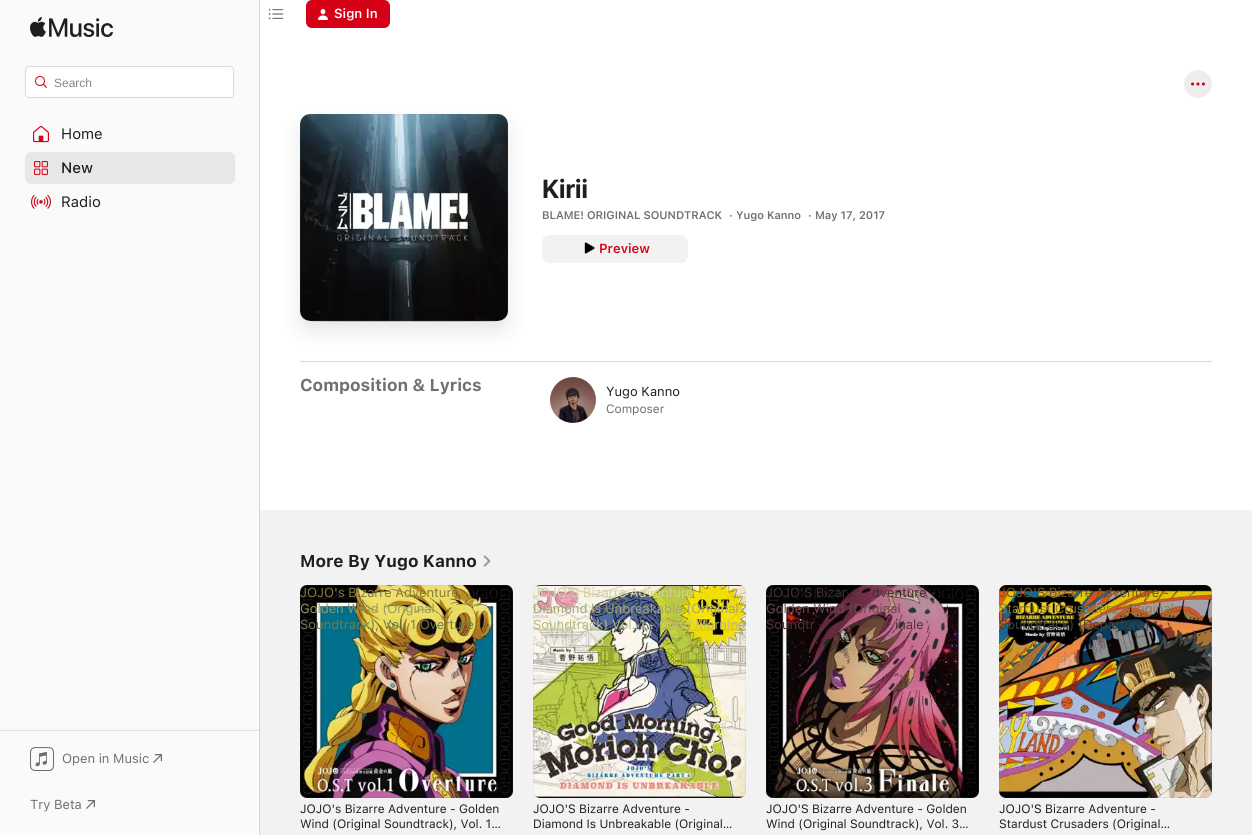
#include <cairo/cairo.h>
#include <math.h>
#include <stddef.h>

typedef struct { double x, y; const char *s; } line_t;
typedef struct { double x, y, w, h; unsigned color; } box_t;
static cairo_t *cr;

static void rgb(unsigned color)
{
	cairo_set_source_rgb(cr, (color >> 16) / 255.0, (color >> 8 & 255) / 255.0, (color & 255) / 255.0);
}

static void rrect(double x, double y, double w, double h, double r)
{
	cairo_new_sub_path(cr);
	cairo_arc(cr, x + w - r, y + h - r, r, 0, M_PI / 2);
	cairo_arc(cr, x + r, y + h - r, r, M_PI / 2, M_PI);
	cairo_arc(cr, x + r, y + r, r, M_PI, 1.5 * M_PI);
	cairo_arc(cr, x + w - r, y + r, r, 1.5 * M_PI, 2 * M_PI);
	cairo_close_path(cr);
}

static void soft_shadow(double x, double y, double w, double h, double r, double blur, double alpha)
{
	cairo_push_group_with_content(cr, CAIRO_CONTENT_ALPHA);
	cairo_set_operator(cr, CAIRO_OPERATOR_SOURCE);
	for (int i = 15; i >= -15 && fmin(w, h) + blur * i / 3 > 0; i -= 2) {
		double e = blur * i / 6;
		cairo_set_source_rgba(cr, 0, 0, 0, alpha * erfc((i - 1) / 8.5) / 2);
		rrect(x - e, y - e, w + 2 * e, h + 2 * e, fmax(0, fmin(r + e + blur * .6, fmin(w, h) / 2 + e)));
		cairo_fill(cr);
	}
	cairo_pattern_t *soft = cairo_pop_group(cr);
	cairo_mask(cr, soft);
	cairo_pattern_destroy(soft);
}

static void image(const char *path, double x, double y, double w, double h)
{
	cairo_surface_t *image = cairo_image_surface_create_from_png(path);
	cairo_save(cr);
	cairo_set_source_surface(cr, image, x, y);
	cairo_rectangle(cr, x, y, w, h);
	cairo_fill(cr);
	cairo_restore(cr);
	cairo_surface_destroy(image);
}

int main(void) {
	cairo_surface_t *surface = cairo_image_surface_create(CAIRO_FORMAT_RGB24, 1252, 835);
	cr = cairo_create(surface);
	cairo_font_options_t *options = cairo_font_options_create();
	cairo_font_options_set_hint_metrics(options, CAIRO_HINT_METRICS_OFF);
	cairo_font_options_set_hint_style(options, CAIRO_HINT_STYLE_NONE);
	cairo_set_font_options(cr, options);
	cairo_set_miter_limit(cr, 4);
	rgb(0xffffff);
	cairo_paint(cr);
	image("img/1.png", 268, 8, 16, 12);
	rgb(0xd60017);
	rrect(306, 0, 84, 28, 6);
	cairo_fill(cr);
	image("img/2.png", 318, 9, 10, 11);
	{
		static const box_t items[] = {
			{0, 0, 259, 835, 0xfafafa},
			{0, 730, 260, 1, 0xe1e1e1},
			{259, 0, 1, 835, 0xd5d5d5},
			{259, 730, 1, 1, 0xc0c0c0},
		};
		for (size_t i = 0; i < sizeof items / sizeof *items; i++) {
			rgb(items[i].color);
			cairo_rectangle(cr, items[i].x, items[i].y, items[i].w, items[i].h);
			cairo_fill(cr);
		}
	}
	image("img/3.png", 30, 17, 83, 20);
	rgb(0xffffff);
	rrect(25.5, 66.5, 208, 31, 3.5);
	cairo_fill_preserve(cr);
	rgb(0xd9d9d9);
	cairo_set_line_width(cr, 1);
	cairo_stroke(cr);
	image("img/4.png", 35, 76, 12, 12);
	image("img/5.png", 33, 125, 16, 18);
	rgb(0xe7e7e8);
	rrect(25, 152, 210, 32, 6);
	cairo_fill(cr);
	image("img/6.png", 34, 161, 14, 14);
	image("img/7.png", 31, 195, 20, 14);
	image("img/8.png", 30, 747, 24, 24);
	image("img/9.png", 153, 754, 9, 9);
	image("img/9.png", 86, 800, 9, 9);
	rgb(0xfafafa);
	cairo_arc(cr, 1198, 84, 14, 0, 2 * M_PI);
	cairo_fill(cr);
	image("img/10.png", 1184, 70, 28, 28);
	rgb(0xd9d9d9);
	cairo_rectangle(cr, 300, 361, 912, 1);
	cairo_fill(cr);
	rgb(0x000000);
	soft_shadow(300, 124, 208, 207, 10, 10, 0.1);
	image("img/11.png", 300, 114, 208, 207);
	rrect(300.5, 114.5, 207, 206, 9.5);
	cairo_set_source_rgba(cr, 0.502, 0.502, 0.502, 0.1);
	cairo_stroke(cr);
	image("img/12.png", 311, 321, 186, 1);
	rgb(0xf2f2f2);
	rrect(542, 235, 146, 28, 7);
	cairo_fill(cr);
	image("img/13.png", 584, 242, 11, 12);
	image("img/14.png", 550, 377, 46, 46);
	cairo_arc(cr, 573, 400, 22.5, 0, 2 * M_PI);
	cairo_set_source_rgba(cr, 0.502, 0.502, 0.502, 0.1);
	cairo_stroke(cr);
	rgb(0xf2f2f2);
	cairo_rectangle(cr, 260, 510, 992, 325);
	cairo_fill(cr);
	image("img/15.png", 483, 555, 8, 12);
	image("img/16.png", 300, 585, 213, 213);
	rrect(300.5, 585.5, 212, 212, 6.5);
	cairo_set_source_rgba(cr, 0.502, 0.502, 0.502, 0.1);
	cairo_stroke(cr);
	image("img/17.png", 533, 585, 213, 213);
	rrect(533.5, 585.5, 212, 212, 6.5);
	cairo_stroke(cr);
	image("img/18.png", 766, 585, 213, 213);
	rrect(766.5, 585.5, 212, 212, 6.5);
	cairo_stroke(cr);
	image("img/19.png", 999, 585, 213, 213);
	rrect(999.5, 585.5, 212, 212, 6.5);
	cairo_stroke(cr);
	cairo_select_font_face(cr, "SF SemiBold", CAIRO_FONT_SLANT_NORMAL, CAIRO_FONT_WEIGHT_NORMAL);
	cairo_set_font_size(cr, 13);
	rgb(0xffffff);
	cairo_move_to(cr, 334, 18);
	cairo_show_text(cr, "Sign In");
	cairo_select_font_face(cr, "Liberation Sans", CAIRO_FONT_SLANT_NORMAL, CAIRO_FONT_WEIGHT_NORMAL);
	cairo_set_font_size(cr, 12);
	rgb(0x858585);
	cairo_move_to(cr, 54, 87);
	cairo_show_text(cr, "Search");
	cairo_select_font_face(cr, "SF", CAIRO_FONT_SLANT_NORMAL, CAIRO_FONT_WEIGHT_NORMAL);
	cairo_set_font_size(cr, 15);
	rgb(0x1f1f1f);
	cairo_move_to(cr, 61, 139);
	cairo_show_text(cr, "Home");
	cairo_select_font_face(cr, "SF Medium", CAIRO_FONT_SLANT_NORMAL, CAIRO_FONT_WEIGHT_NORMAL);
	cairo_move_to(cr, 61, 173);
	cairo_show_text(cr, "New");
	cairo_select_font_face(cr, "SF", CAIRO_FONT_SLANT_NORMAL, CAIRO_FONT_WEIGHT_NORMAL);
	cairo_move_to(cr, 61, 207);
	cairo_show_text(cr, "Radio");
	cairo_set_font_size(cr, 13);
	rgb(0x707070);
	cairo_move_to(cr, 62, 763);
	cairo_show_text(cr, "Open in Music");
	cairo_move_to(cr, 30, 809);
	cairo_show_text(cr, "Try Beta");
	cairo_select_font_face(cr, "SF", CAIRO_FONT_SLANT_NORMAL, CAIRO_FONT_WEIGHT_BOLD);
	cairo_set_font_size(cr, 26);
	rgb(0x1f1f1f);
	cairo_move_to(cr, 542, 198);
	cairo_show_text(cr, "Kirii");
	cairo_select_font_face(cr, "SF SemiBold", CAIRO_FONT_SLANT_NORMAL, CAIRO_FONT_WEIGHT_NORMAL);
	cairo_set_font_size(cr, 11);
	rgb(0x707070);
	{
		static const line_t items[] = {
			{542, 219, "BLAME! ORIGINAL SOUNDTRACK"},
			{729, 219, "·"},
			{736, 219, "Yugo Kanno"},
			{808, 219, "·"},
			{815, 219, "May 17, 2017"},
		};
		for (size_t i = 0; i < sizeof items / sizeof *items; i++) {
			cairo_move_to(cr, items[i].x, items[i].y);
			cairo_show_text(cr, items[i].s);
		}
	}
	cairo_set_font_size(cr, 13);
	rgb(0xd60017);
	cairo_move_to(cr, 599, 253);
	cairo_show_text(cr, "Preview");
	cairo_select_font_face(cr, "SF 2", CAIRO_FONT_SLANT_NORMAL, CAIRO_FONT_WEIGHT_BOLD);
	cairo_set_font_size(cr, 17);
	rgb(0x707070);
	cairo_move_to(cr, 300, 391);
	cairo_show_text(cr, "Composition & Lyrics");
	cairo_select_font_face(cr, "SF", CAIRO_FONT_SLANT_NORMAL, CAIRO_FONT_WEIGHT_NORMAL);
	cairo_set_font_size(cr, 13);
	rgb(0x1f1f1f);
	cairo_move_to(cr, 606, 396);
	cairo_show_text(cr, "Yugo Kanno");
	cairo_set_font_size(cr, 12);
	rgb(0x707070);
	cairo_move_to(cr, 606, 413);
	cairo_show_text(cr, "Composer");
	cairo_select_font_face(cr, "SF 2", CAIRO_FONT_SLANT_NORMAL, CAIRO_FONT_WEIGHT_BOLD);
	cairo_set_font_size(cr, 17);
	rgb(0x1f1f1f);
	cairo_move_to(cr, 300, 567);
	cairo_show_text(cr, "More By Yugo Kanno");
	cairo_select_font_face(cr, "SF", CAIRO_FONT_SLANT_NORMAL, CAIRO_FONT_WEIGHT_NORMAL);
	cairo_set_font_size(cr, 13);
	rgb(0x867939);
	cairo_move_to(cr, 300, 597);
	cairo_show_text(cr, "JOJO's Bizarre Adventure -");
	rgb(0x92995e);
	cairo_move_to(cr, 300, 613);
	cairo_show_text(cr, "Golden Wind (Original");
	rgb(0x6d7c4f);
	cairo_move_to(cr, 300, 629);
	cairo_show_text(cr, "Soundtrack), Vol. 1 Overture");
	cairo_set_font_size(cr, 12);
	rgb(0x1f1f1f);
	cairo_move_to(cr, 300, 813);
	cairo_show_text(cr, "JOJO's Bizarre Adventure - Golden");
	cairo_move_to(cr, 300, 828);
	cairo_show_text(cr, "Wind (Original Soundtrack), Vol. 1…");
	cairo_set_font_size(cr, 13);
	rgb(0xd4cea4);
	cairo_move_to(cr, 533, 597);
	cairo_show_text(cr, "JOJO'S Bizarre Adventure -");
	rgb(0xa5a46e);
	cairo_move_to(cr, 533, 613);
	cairo_show_text(cr, "Diamond Is Unbreakable (Original");
	rgb(0xbdbb7b);
	cairo_move_to(cr, 533, 629);
	cairo_show_text(cr, "Soundtrack) Vol. 1 - Good Morning");
	rgb(0xe1e0cf);
	cairo_move_to(cr, 533, 645);
	cairo_show_text(cr, "Morioh Cho");
	cairo_set_font_size(cr, 12);
	rgb(0x1f1f1f);
	cairo_move_to(cr, 533, 813);
	cairo_show_text(cr, "JOJO'S Bizarre Adventure -");
	cairo_move_to(cr, 533, 828);
	cairo_show_text(cr, "Diamond Is Unbreakable (Original…");
	cairo_set_font_size(cr, 13);
	rgb(0x422d32);
	cairo_move_to(cr, 766, 597);
	cairo_show_text(cr, "JOJO'S Bizar");
	cairo_move_to(cr, 872, 597);
	cairo_show_text(cr, "dventure -");
	rgb(0x6a4751);
	cairo_move_to(cr, 766, 613);
	cairo_show_text(cr, "Golden Wind (Original");
	rgb(0x55333a);
	cairo_move_to(cr, 766, 629);
	cairo_show_text(cr, "Soundtr");
	cairo_move_to(cr, 895, 629);
	cairo_show_text(cr, "inale");
	cairo_set_font_size(cr, 12);
	rgb(0x1f1f1f);
	cairo_move_to(cr, 766, 813);
	cairo_show_text(cr, "JOJO'S Bizarre Adventure - Golden");
	cairo_move_to(cr, 766, 828);
	cairo_show_text(cr, "Wind (Original Soundtrack), Vol. 3…");
	cairo_set_font_size(cr, 13);
	rgb(0x73591e);
	cairo_move_to(cr, 999, 597);
	cairo_show_text(cr, "JOJO'S Bizarre Adventure -");
	rgb(0x917636);
	cairo_move_to(cr, 999, 613);
	cairo_show_text(cr, "Stardust Crusaders (Original");
	rgb(0x444339);
	cairo_move_to(cr, 999, 629);
	cairo_show_text(cr, "Soundtrack) [Departure]");
	cairo_set_font_size(cr, 12);
	rgb(0x1f1f1f);
	cairo_move_to(cr, 999, 813);
	cairo_show_text(cr, "JOJO'S Bizarre Adventure -");
	cairo_move_to(cr, 999, 828);
	cairo_show_text(cr, "Stardust Crusaders (Original…");
	cairo_surface_write_to_png(surface, "page.png");
	cairo_font_options_destroy(options);
	cairo_destroy(cr);
	cairo_surface_destroy(surface);
	return 0;
}
